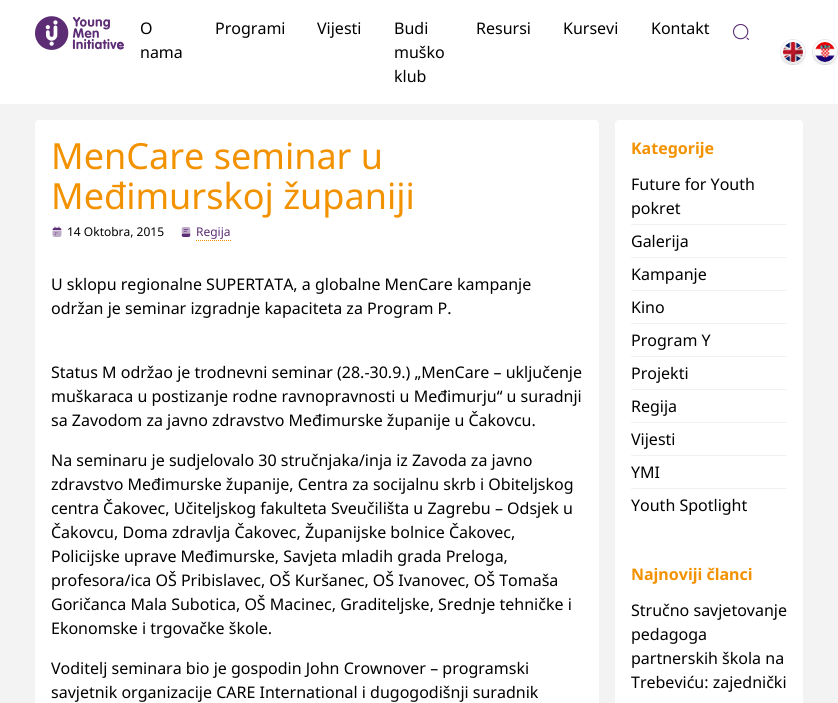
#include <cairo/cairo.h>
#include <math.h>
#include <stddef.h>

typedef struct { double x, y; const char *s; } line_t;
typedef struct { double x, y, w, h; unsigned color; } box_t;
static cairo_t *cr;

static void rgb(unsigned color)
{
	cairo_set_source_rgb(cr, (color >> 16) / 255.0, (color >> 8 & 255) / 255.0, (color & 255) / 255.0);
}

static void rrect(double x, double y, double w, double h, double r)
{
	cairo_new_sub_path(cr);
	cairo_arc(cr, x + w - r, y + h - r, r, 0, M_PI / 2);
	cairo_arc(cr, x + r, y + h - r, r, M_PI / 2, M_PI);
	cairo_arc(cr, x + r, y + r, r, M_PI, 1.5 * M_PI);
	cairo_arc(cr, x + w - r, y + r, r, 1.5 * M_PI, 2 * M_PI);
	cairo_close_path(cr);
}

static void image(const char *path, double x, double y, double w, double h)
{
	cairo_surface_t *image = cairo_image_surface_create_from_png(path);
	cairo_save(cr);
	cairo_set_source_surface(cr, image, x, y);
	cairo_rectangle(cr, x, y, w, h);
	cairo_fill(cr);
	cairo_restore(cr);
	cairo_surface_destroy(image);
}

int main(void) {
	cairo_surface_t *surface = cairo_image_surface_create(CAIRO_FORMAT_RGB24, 838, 703);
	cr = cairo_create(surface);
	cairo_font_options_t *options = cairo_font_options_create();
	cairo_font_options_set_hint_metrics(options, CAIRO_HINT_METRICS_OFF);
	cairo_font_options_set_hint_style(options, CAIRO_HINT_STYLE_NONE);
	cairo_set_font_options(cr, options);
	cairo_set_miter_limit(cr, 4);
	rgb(0xf3f3f3);
	cairo_paint(cr);
	rgb(0xffffff);
	cairo_rectangle(cr, 0, 0, 838, 104);
	cairo_fill(cr);
	image("img/1.png", 35, 16, 89, 34);
	image("img/2.png", 732, 23, 17, 17);
	cairo_arc(cr, 793, 52, 12.5, 0, 2 * M_PI);
	rgb(0xe5e7eb);
	cairo_set_line_width(cr, 1);
	cairo_stroke(cr);
	cairo_arc(cr, 793, 52, 11, 0, 2 * M_PI);
	rgb(0xffffff);
	cairo_set_line_width(cr, 2);
	cairo_stroke(cr);
	image("img/3.png", 781, 42, 24, 23);
	cairo_arc(cr, 825, 52, 12.5, 0, 2 * M_PI);
	rgb(0xe5e7eb);
	cairo_set_line_width(cr, 1);
	cairo_stroke(cr);
	cairo_arc(cr, 825, 52, 11, 0, 2 * M_PI);
	rgb(0xffffff);
	cairo_set_line_width(cr, 2);
	cairo_stroke(cr);
	image("img/4.png", 813, 42, 24, 23);
	rrect(35, 120, 564, 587, 4);
	cairo_fill(cr);
	image("img/5.png", 52, 226, 10, 11);
	image("img/6.png", 181, 227, 10, 10);
	cairo_new_path(cr);
	cairo_move_to(cr, 196, 240.5);
	cairo_line_to(cr, 231, 240.5);
	rgb(0xf39200);
	cairo_set_line_width(cr, 1);
	cairo_set_dash(cr, (double[]){1, 1}, 2, 0);
	cairo_stroke(cr);
	rgb(0xffffff);
	rrect(615, 120, 188, 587, 4);
	cairo_fill(cr);
	{
		static const box_t items[] = {
			{631, 224, 156, 1, 0xf2f2f2},
			{631, 257, 156, 1, 0xf2f2f2},
			{631, 290, 156, 1, 0xf2f2f2},
			{631, 323, 156, 1, 0xf2f2f2},
			{631, 356, 156, 1, 0xf2f2f2},
			{631, 389, 156, 1, 0xf2f2f2},
			{631, 422, 156, 1, 0xf2f2f2},
			{631, 455, 156, 1, 0xf2f2f2},
			{631, 488, 156, 1, 0xf2f2f2},
		};
		for (size_t i = 0; i < sizeof items / sizeof *items; i++) {
			rgb(items[i].color);
			cairo_rectangle(cr, items[i].x, items[i].y, items[i].w, items[i].h);
			cairo_fill(cr);
		}
	}
	cairo_select_font_face(cr, "Noto Sans", CAIRO_FONT_SLANT_NORMAL, CAIRO_FONT_WEIGHT_NORMAL);
	cairo_set_font_size(cr, 16);
	rgb(0x000000);
	{
		static const line_t items[] = {
			{140, 34, "O"},
			{140, 58, "nama"},
			{215, 34, "Programi"},
			{317, 34, "Vijesti"},
			{394, 34, "Budi"},
			{394, 58, "muško"},
			{394, 82, "klub"},
			{476, 34, "Resursi"},
			{563, 34, "Kursevi"},
			{651, 34, "Kontakt"},
		};
		for (size_t i = 0; i < sizeof items / sizeof *items; i++) {
			cairo_move_to(cr, items[i].x, items[i].y);
			cairo_show_text(cr, items[i].s);
		}
	}
	cairo_set_font_size(cr, 36);
	rgb(0xf39200);
	cairo_move_to(cr, 51, 169);
	cairo_show_text(cr, "MenCare seminar u");
	cairo_move_to(cr, 51, 209);
	cairo_show_text(cr, "Međimurskoj županiji");
	cairo_set_font_size(cr, 12);
	rgb(0x000000);
	cairo_move_to(cr, 67, 236);
	cairo_show_text(cr, "14 Oktobra, 2015");
	rgb(0x5c2d74);
	cairo_move_to(cr, 196, 236);
	cairo_show_text(cr, "Regija");
	cairo_set_font_size(cr, 16);
	rgb(0x000000);
	{
		static const line_t items[] = {
			{51, 290, "U sklopu regionalne SUPERTATA, a globalne MenCare kampanje"},
			{51, 314, "održan je seminar izgradnje kapaciteta za Program P."},
			{51, 378, "Status M održao je trodnevni seminar (28.-30.9.) „MenCare – uključenje"},
			{51, 402, "muškaraca u postizanje rodne ravnopravnosti u Međimurju“ u suradnji"},
			{51, 426, "sa Zavodom za javno zdravstvo Međimurske županije u Čakovcu."},
			{51, 466, "Na seminaru je sudjelovalo 30 stručnjaka/inja iz Zavoda za javno"},
			{51, 490, "zdravstvo Međimurske županije, Centra za socijalnu skrb i Obiteljskog"},
			{51, 514, "centra Čakovec, Učiteljskog fakulteta Sveučilišta u Zagrebu – Odsjek u"},
			{51, 538, "Čakovcu, Doma zdravlja Čakovec, Županijske bolnice Čakovec,"},
			{51, 562, "Policijske uprave Međimurske, Savjeta mladih grada Preloga,"},
			{51, 586, "profesora/ica OŠ Pribislavec, OŠ Kuršanec, OŠ Ivanovec, OŠ Tomaša"},
			{51, 610, "Goričanca Mala Subotica, OŠ Macinec, Graditeljske, Srednje tehničke i"},
			{51, 634, "Ekonomske i trgovačke škole."},
			{51, 674, "Voditelj seminara bio je gospodin John Crownover – programski"},
			{51, 698, "savjetnik organizacije CARE International i dugogodišnji suradnik"},
		};
		for (size_t i = 0; i < sizeof items / sizeof *items; i++) {
			cairo_move_to(cr, items[i].x, items[i].y);
			cairo_show_text(cr, items[i].s);
		}
	}
	cairo_select_font_face(cr, "Noto Sans", CAIRO_FONT_SLANT_NORMAL, CAIRO_FONT_WEIGHT_BOLD);
	rgb(0xf39200);
	cairo_move_to(cr, 631, 154);
	cairo_show_text(cr, "Kategorije");
	cairo_select_font_face(cr, "Noto Sans", CAIRO_FONT_SLANT_NORMAL, CAIRO_FONT_WEIGHT_NORMAL);
	rgb(0x000000);
	{
		static const line_t items[] = {
			{631, 190, "Future for Youth"},
			{631, 214, "pokret"},
			{631, 247, "Galerija"},
			{631, 280, "Kampanje"},
			{631, 313, "Kino"},
			{631, 346, "Program Y"},
			{631, 379, "Projekti"},
			{631, 412, "Regija"},
			{631, 445, "Vijesti"},
			{631, 478, "YMI"},
			{631, 511, "Youth Spotlight"},
		};
		for (size_t i = 0; i < sizeof items / sizeof *items; i++) {
			cairo_move_to(cr, items[i].x, items[i].y);
			cairo_show_text(cr, items[i].s);
		}
	}
	cairo_select_font_face(cr, "Noto Sans", CAIRO_FONT_SLANT_NORMAL, CAIRO_FONT_WEIGHT_BOLD);
	rgb(0xf39200);
	cairo_move_to(cr, 631, 580);
	cairo_show_text(cr, "Najnoviji članci");
	cairo_select_font_face(cr, "Noto Sans", CAIRO_FONT_SLANT_NORMAL, CAIRO_FONT_WEIGHT_NORMAL);
	rgb(0x000000);
	{
		static const line_t items[] = {
			{631, 616, "Stručno savjetovanje"},
			{631, 640, "pedagoga"},
			{631, 664, "partnerskih škola na"},
			{631, 688, "Trebeviću: zajednički"},
		};
		for (size_t i = 0; i < sizeof items / sizeof *items; i++) {
			cairo_move_to(cr, items[i].x, items[i].y);
			cairo_show_text(cr, items[i].s);
		}
	}
	cairo_surface_write_to_png(surface, "page.png");
	cairo_font_options_destroy(options);
	cairo_destroy(cr);
	cairo_surface_destroy(surface);
	return 0;
}
